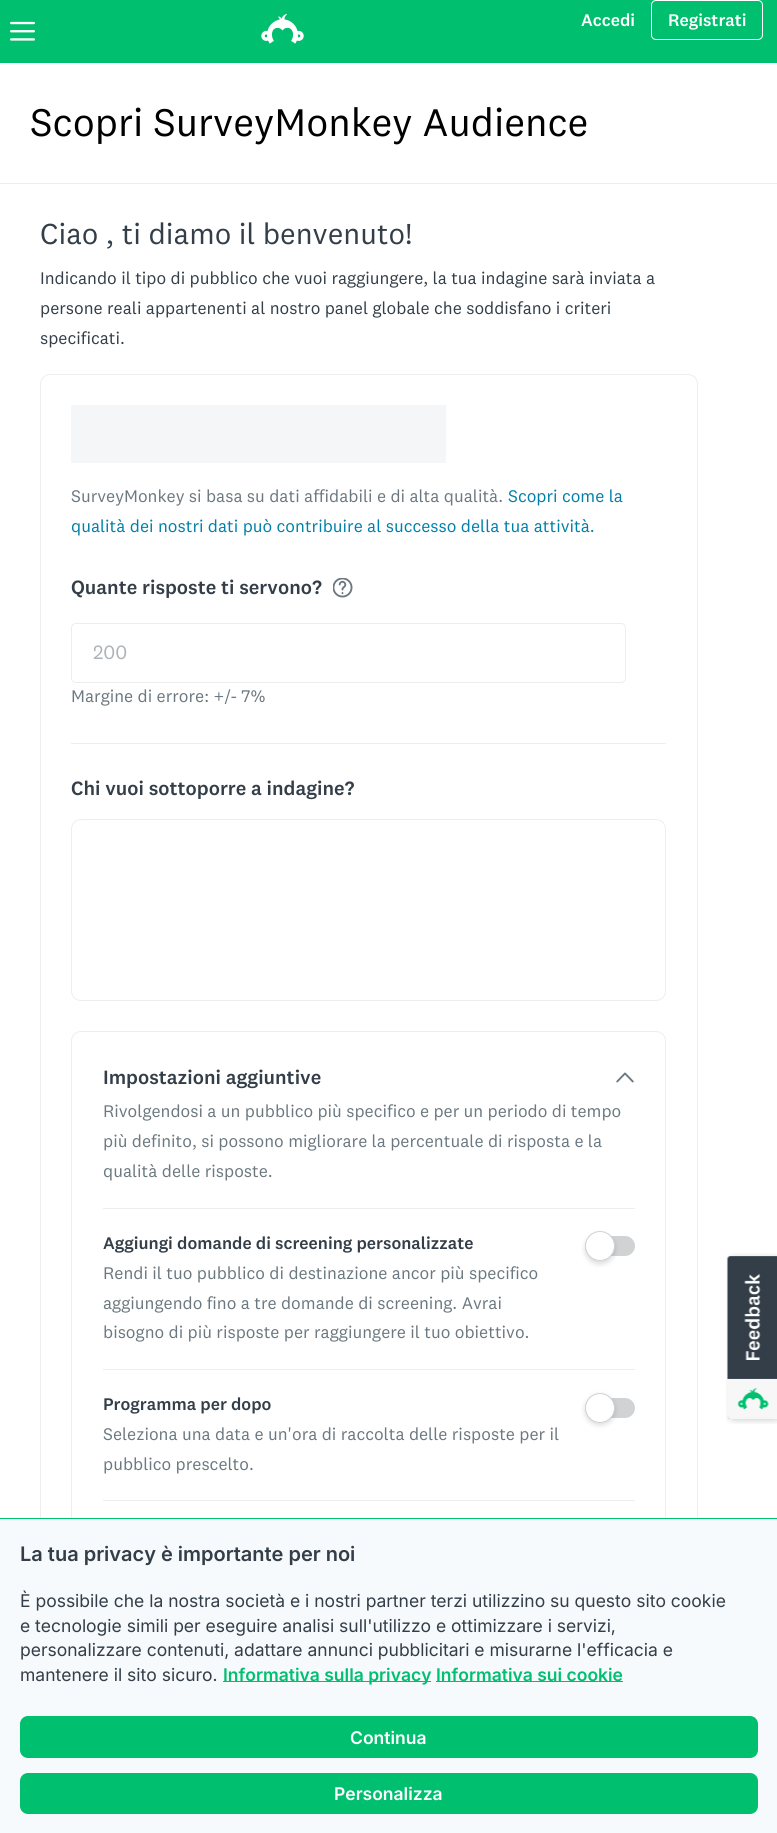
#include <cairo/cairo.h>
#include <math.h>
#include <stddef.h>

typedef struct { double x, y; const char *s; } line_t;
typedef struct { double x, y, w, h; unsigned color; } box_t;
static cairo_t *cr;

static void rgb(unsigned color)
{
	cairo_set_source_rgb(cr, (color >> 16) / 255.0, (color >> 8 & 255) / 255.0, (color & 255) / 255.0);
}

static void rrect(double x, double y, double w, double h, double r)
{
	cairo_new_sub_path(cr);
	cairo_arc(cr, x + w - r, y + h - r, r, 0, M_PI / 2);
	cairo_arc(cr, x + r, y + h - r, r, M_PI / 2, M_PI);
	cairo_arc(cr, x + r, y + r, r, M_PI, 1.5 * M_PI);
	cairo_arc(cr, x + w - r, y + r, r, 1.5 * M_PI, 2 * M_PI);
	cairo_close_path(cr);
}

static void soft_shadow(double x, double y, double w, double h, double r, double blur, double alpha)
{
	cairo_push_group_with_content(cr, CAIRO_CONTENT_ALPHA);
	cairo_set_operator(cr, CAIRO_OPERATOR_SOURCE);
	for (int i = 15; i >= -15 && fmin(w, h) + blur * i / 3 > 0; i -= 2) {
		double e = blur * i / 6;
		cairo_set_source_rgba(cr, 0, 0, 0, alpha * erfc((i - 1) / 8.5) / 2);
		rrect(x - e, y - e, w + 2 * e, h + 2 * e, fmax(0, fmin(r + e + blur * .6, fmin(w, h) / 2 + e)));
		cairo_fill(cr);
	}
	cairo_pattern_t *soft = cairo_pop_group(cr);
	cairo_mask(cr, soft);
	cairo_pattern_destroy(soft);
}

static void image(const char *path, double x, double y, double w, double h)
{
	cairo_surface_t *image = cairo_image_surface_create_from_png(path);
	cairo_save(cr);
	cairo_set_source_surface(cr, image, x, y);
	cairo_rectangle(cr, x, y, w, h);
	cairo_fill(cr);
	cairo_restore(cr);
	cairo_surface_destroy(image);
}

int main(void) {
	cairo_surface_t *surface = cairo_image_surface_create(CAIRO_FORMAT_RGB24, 777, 1833);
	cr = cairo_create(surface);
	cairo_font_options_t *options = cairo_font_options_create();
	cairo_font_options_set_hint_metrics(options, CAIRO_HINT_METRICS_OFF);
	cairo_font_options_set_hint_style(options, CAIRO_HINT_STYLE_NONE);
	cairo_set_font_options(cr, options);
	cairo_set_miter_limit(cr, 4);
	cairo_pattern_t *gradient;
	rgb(0xffffff);
	cairo_paint(cr);
	rgb(0x00bf6f);
	cairo_rectangle(cr, 0, 0, 777, 63);
	cairo_fill(cr);
	image("img/1.png", 10, 21, 25, 20);
	image("img/2.png", 261, 13, 43, 31);
	rrect(651.5, 0.5, 111, 39, 4.5);
	rgb(0xffffff);
	cairo_set_line_width(cr, 1);
	cairo_stroke(cr);
	rgb(0xedeeee);
	cairo_rectangle(cr, 0, 183, 777, 1);
	cairo_fill(cr);
	rrect(40.5, 374.5, 657, 1329, 9.5);
	cairo_stroke(cr);
	gradient = cairo_pattern_create_linear(-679, 405, -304, 405);
	cairo_pattern_add_color_stop_rgba(gradient, 0, 0.961, 0.965, 0.969, 1);
	cairo_pattern_add_color_stop_rgba(gradient, 0.5, 0.933, 0.933, 0.933, 1);
	cairo_pattern_add_color_stop_rgba(gradient, 1, 0.961, 0.965, 0.969, 1);
	cairo_set_source(cr, gradient);
	cairo_pattern_destroy(gradient);
	cairo_rectangle(cr, 71, 405, 375, 58);
	cairo_fill(cr);
	image("img/3.png", 333, 578, 20, 20);
	rrect(71.5, 623.5, 554, 59, 4.5);
	rgb(0xeceded);
	cairo_stroke(cr);
	rgb(0xedeeee);
	cairo_rectangle(cr, 71, 743, 595, 1);
	cairo_fill(cr);
	rrect(71.5, 819.5, 594, 181, 9.5);
	cairo_stroke(cr);
	rrect(71.5, 1031.5, 594, 641, 9.5);
	cairo_stroke(cr);
	image("img/4.png", 616, 1072, 18, 11);
	cairo_rectangle(cr, 103, 1208, 532, 1);
	cairo_fill(cr);
	rgb(0xd0d2d3);
	rrect(585, 1236, 50, 20, 10);
	cairo_fill(cr);
	rgb(0x000000);
	soft_shadow(585, 1234, 30, 30, 15, 2.5, 0.14);
	rgb(0xffffff);
	cairo_arc(cr, 600, 1246, 14.5, 0, 2 * M_PI);
	cairo_fill_preserve(cr);
	rgb(0xd0d2d3);
	cairo_stroke(cr);
	rgb(0xedeeee);
	cairo_rectangle(cr, 103, 1369, 532, 1);
	cairo_fill(cr);
	rgb(0xd0d2d3);
	rrect(585, 1398, 50, 20, 10);
	cairo_fill(cr);
	rgb(0x000000);
	soft_shadow(585, 1395, 30, 30, 15, 2.5, 0.14);
	rgb(0xffffff);
	cairo_arc(cr, 600, 1408, 14.5, 0, 2 * M_PI);
	cairo_fill_preserve(cr);
	rgb(0xd0d2d3);
	cairo_stroke(cr);
	rgb(0xedeeee);
	cairo_rectangle(cr, 103, 1500, 532, 1);
	cairo_fill(cr);
	image("img/5.png", 726, 1253, 51, 171);
	{
		static const box_t items[] = {
			{0, 1519, 777, 314, 0xf7fafc},
			{0, 1518, 777, 1, 0x00bf6f},
			{223, 1681, 208, 1, 0x00bf6f},
			{436, 1681, 187, 1, 0x00bf6f},
		};
		for (size_t i = 0; i < sizeof items / sizeof *items; i++) {
			rgb(items[i].color);
			cairo_rectangle(cr, items[i].x, items[i].y, items[i].w, items[i].h);
			cairo_fill(cr);
		}
	}
	rrect(20, 1716, 738, 42, 8);
	cairo_fill(cr);
	rrect(20, 1773, 738, 41, 8);
	cairo_fill(cr);
	cairo_select_font_face(cr, "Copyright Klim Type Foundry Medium", CAIRO_FONT_SLANT_NORMAL, CAIRO_FONT_WEIGHT_NORMAL);
	cairo_set_font_size(cr, 17.5);
	rgb(0xffffff);
	cairo_move_to(cr, 581, 26);
	cairo_show_text(cr, "Accedi");
	cairo_move_to(cr, 668, 26);
	cairo_show_text(cr, "Registrati");
	cairo_select_font_face(cr, "Copyright Klim Type Foundry", CAIRO_FONT_SLANT_NORMAL, CAIRO_FONT_WEIGHT_NORMAL);
	cairo_set_font_size(cr, 40);
	rgb(0x000000);
	cairo_move_to(cr, 30, 136);
	cairo_show_text(cr, "Scopri SurveyMonkey Audience");
	cairo_set_font_size(cr, 30);
	rgb(0x333e48);
	cairo_move_to(cr, 40, 244);
	cairo_show_text(cr, "Ciao , ti diamo il benvenuto!");
	cairo_set_font_size(cr, 17.5);
	{
		static const line_t items[] = {
			{40, 284, "Indicando il tipo di pubblico che vuoi raggiungere, la tua indagine sarà inviata a"},
			{40, 314, "persone reali appartenenti al nostro panel globale che soddisfano i criteri"},
			{40, 344, "specificati."},
		};
		for (size_t i = 0; i < sizeof items / sizeof *items; i++) {
			cairo_move_to(cr, items[i].x, items[i].y);
			cairo_show_text(cr, items[i].s);
		}
	}
	rgb(0x6b787f);
	cairo_move_to(cr, 71, 502);
	cairo_show_text(cr, "SurveyMonkey si basa su dati affidabili e di alta qualità.");
	rgb(0x007faa);
	cairo_move_to(cr, 508, 502);
	cairo_show_text(cr, "Scopri come la");
	cairo_move_to(cr, 71, 532);
	cairo_show_text(cr, "qualità dei nostri dati può contribuire al successo della tua attività.");
	cairo_select_font_face(cr, "Copyright Klim Type Foundry Medium", CAIRO_FONT_SLANT_NORMAL, CAIRO_FONT_WEIGHT_NORMAL);
	cairo_set_font_size(cr, 20);
	rgb(0x333e48);
	cairo_move_to(cr, 71, 594);
	cairo_show_text(cr, "Quante risposte ti servono?");
	cairo_select_font_face(cr, "Copyright Klim Type Foundry", CAIRO_FONT_SLANT_NORMAL, CAIRO_FONT_WEIGHT_NORMAL);
	rgb(0xadb2b6);
	cairo_move_to(cr, 93, 659);
	cairo_show_text(cr, "200");
	cairo_set_font_size(cr, 17.5);
	rgb(0x6b787f);
	cairo_move_to(cr, 71, 702);
	cairo_show_text(cr, "Margine di errore: +/- 7%");
	cairo_select_font_face(cr, "Copyright Klim Type Foundry Medium", CAIRO_FONT_SLANT_NORMAL, CAIRO_FONT_WEIGHT_NORMAL);
	cairo_set_font_size(cr, 20);
	rgb(0x333e48);
	cairo_move_to(cr, 71, 795);
	cairo_show_text(cr, "Chi vuoi sottoporre a indagine?");
	cairo_move_to(cr, 103, 1084);
	cairo_show_text(cr, "Impostazioni aggiuntive");
	cairo_select_font_face(cr, "Copyright Klim Type Foundry", CAIRO_FONT_SLANT_NORMAL, CAIRO_FONT_WEIGHT_NORMAL);
	cairo_set_font_size(cr, 17.5);
	rgb(0x6b787f);
	{
		static const line_t items[] = {
			{103, 1117, "Rivolgendosi a un pubblico più specifico e per un periodo di tempo"},
			{103, 1147, "più definito, si possono migliorare la percentuale di risposta e la"},
			{103, 1177, "qualità delle risposte."},
		};
		for (size_t i = 0; i < sizeof items / sizeof *items; i++) {
			cairo_move_to(cr, items[i].x, items[i].y);
			cairo_show_text(cr, items[i].s);
		}
	}
	cairo_select_font_face(cr, "Copyright Klim Type Foundry Medium", CAIRO_FONT_SLANT_NORMAL, CAIRO_FONT_WEIGHT_NORMAL);
	rgb(0x333e48);
	cairo_move_to(cr, 103, 1249);
	cairo_show_text(cr, "Aggiungi domande di screening personalizzate");
	cairo_select_font_face(cr, "Copyright Klim Type Foundry", CAIRO_FONT_SLANT_NORMAL, CAIRO_FONT_WEIGHT_NORMAL);
	rgb(0x6b787f);
	{
		static const line_t items[] = {
			{103, 1279, "Rendi il tuo pubblico di destinazione ancor più specifico"},
			{103, 1309, "aggiungendo fino a tre domande di screening. Avrai"},
			{103, 1338, "bisogno di più risposte per raggiungere il tuo obiettivo."},
		};
		for (size_t i = 0; i < sizeof items / sizeof *items; i++) {
			cairo_move_to(cr, items[i].x, items[i].y);
			cairo_show_text(cr, items[i].s);
		}
	}
	cairo_select_font_face(cr, "Copyright Klim Type Foundry Medium", CAIRO_FONT_SLANT_NORMAL, CAIRO_FONT_WEIGHT_NORMAL);
	rgb(0x333e48);
	cairo_move_to(cr, 103, 1410);
	cairo_show_text(cr, "Programma per dopo");
	cairo_select_font_face(cr, "Copyright Klim Type Foundry", CAIRO_FONT_SLANT_NORMAL, CAIRO_FONT_WEIGHT_NORMAL);
	rgb(0x6b787f);
	cairo_move_to(cr, 103, 1440);
	cairo_show_text(cr, "Seleziona una data e un'ora di raccolta delle risposte per il");
	cairo_move_to(cr, 103, 1470);
	cairo_show_text(cr, "pubblico prescelto.");
	cairo_select_font_face(cr, "Inter SemiBold", CAIRO_FONT_SLANT_NORMAL, CAIRO_FONT_WEIGHT_NORMAL);
	cairo_set_font_size(cr, 20);
	rgb(0x333e48);
	cairo_move_to(cr, 20, 1561);
	cairo_show_text(cr, "La tua privacy è importante per noi");
	cairo_select_font_face(cr, "Inter", CAIRO_FONT_SLANT_NORMAL, CAIRO_FONT_WEIGHT_NORMAL);
	cairo_set_font_size(cr, 17.5);
	{
		static const line_t items[] = {
			{20, 1607, "È possibile che la nostra società e i nostri partner terzi utilizzino su questo sito cookie"},
			{20, 1632, "e tecnologie simili per eseguire analisi sull'utilizzo e ottimizzare i servizi,"},
			{20, 1656, "personalizzare contenuti, adattare annunci pubblicitari e misurarne l'efficacia e"},
			{20, 1681, "mantenere il sito sicuro."},
		};
		for (size_t i = 0; i < sizeof items / sizeof *items; i++) {
			cairo_move_to(cr, items[i].x, items[i].y);
			cairo_show_text(cr, items[i].s);
		}
	}
	cairo_select_font_face(cr, "Inter SemiBold", CAIRO_FONT_SLANT_NORMAL, CAIRO_FONT_WEIGHT_NORMAL);
	rgb(0x00bf6f);
	cairo_move_to(cr, 223, 1681);
	cairo_show_text(cr, "Informativa sulla privacy");
	cairo_move_to(cr, 436, 1681);
	cairo_show_text(cr, "Informativa sui cookie");
	rgb(0xffffff);
	cairo_move_to(cr, 350, 1744);
	cairo_show_text(cr, "Continua");
	cairo_move_to(cr, 334, 1800);
	cairo_show_text(cr, "Personalizza");
	cairo_surface_write_to_png(surface, "page.png");
	cairo_font_options_destroy(options);
	cairo_destroy(cr);
	cairo_surface_destroy(surface);
	return 0;
}
